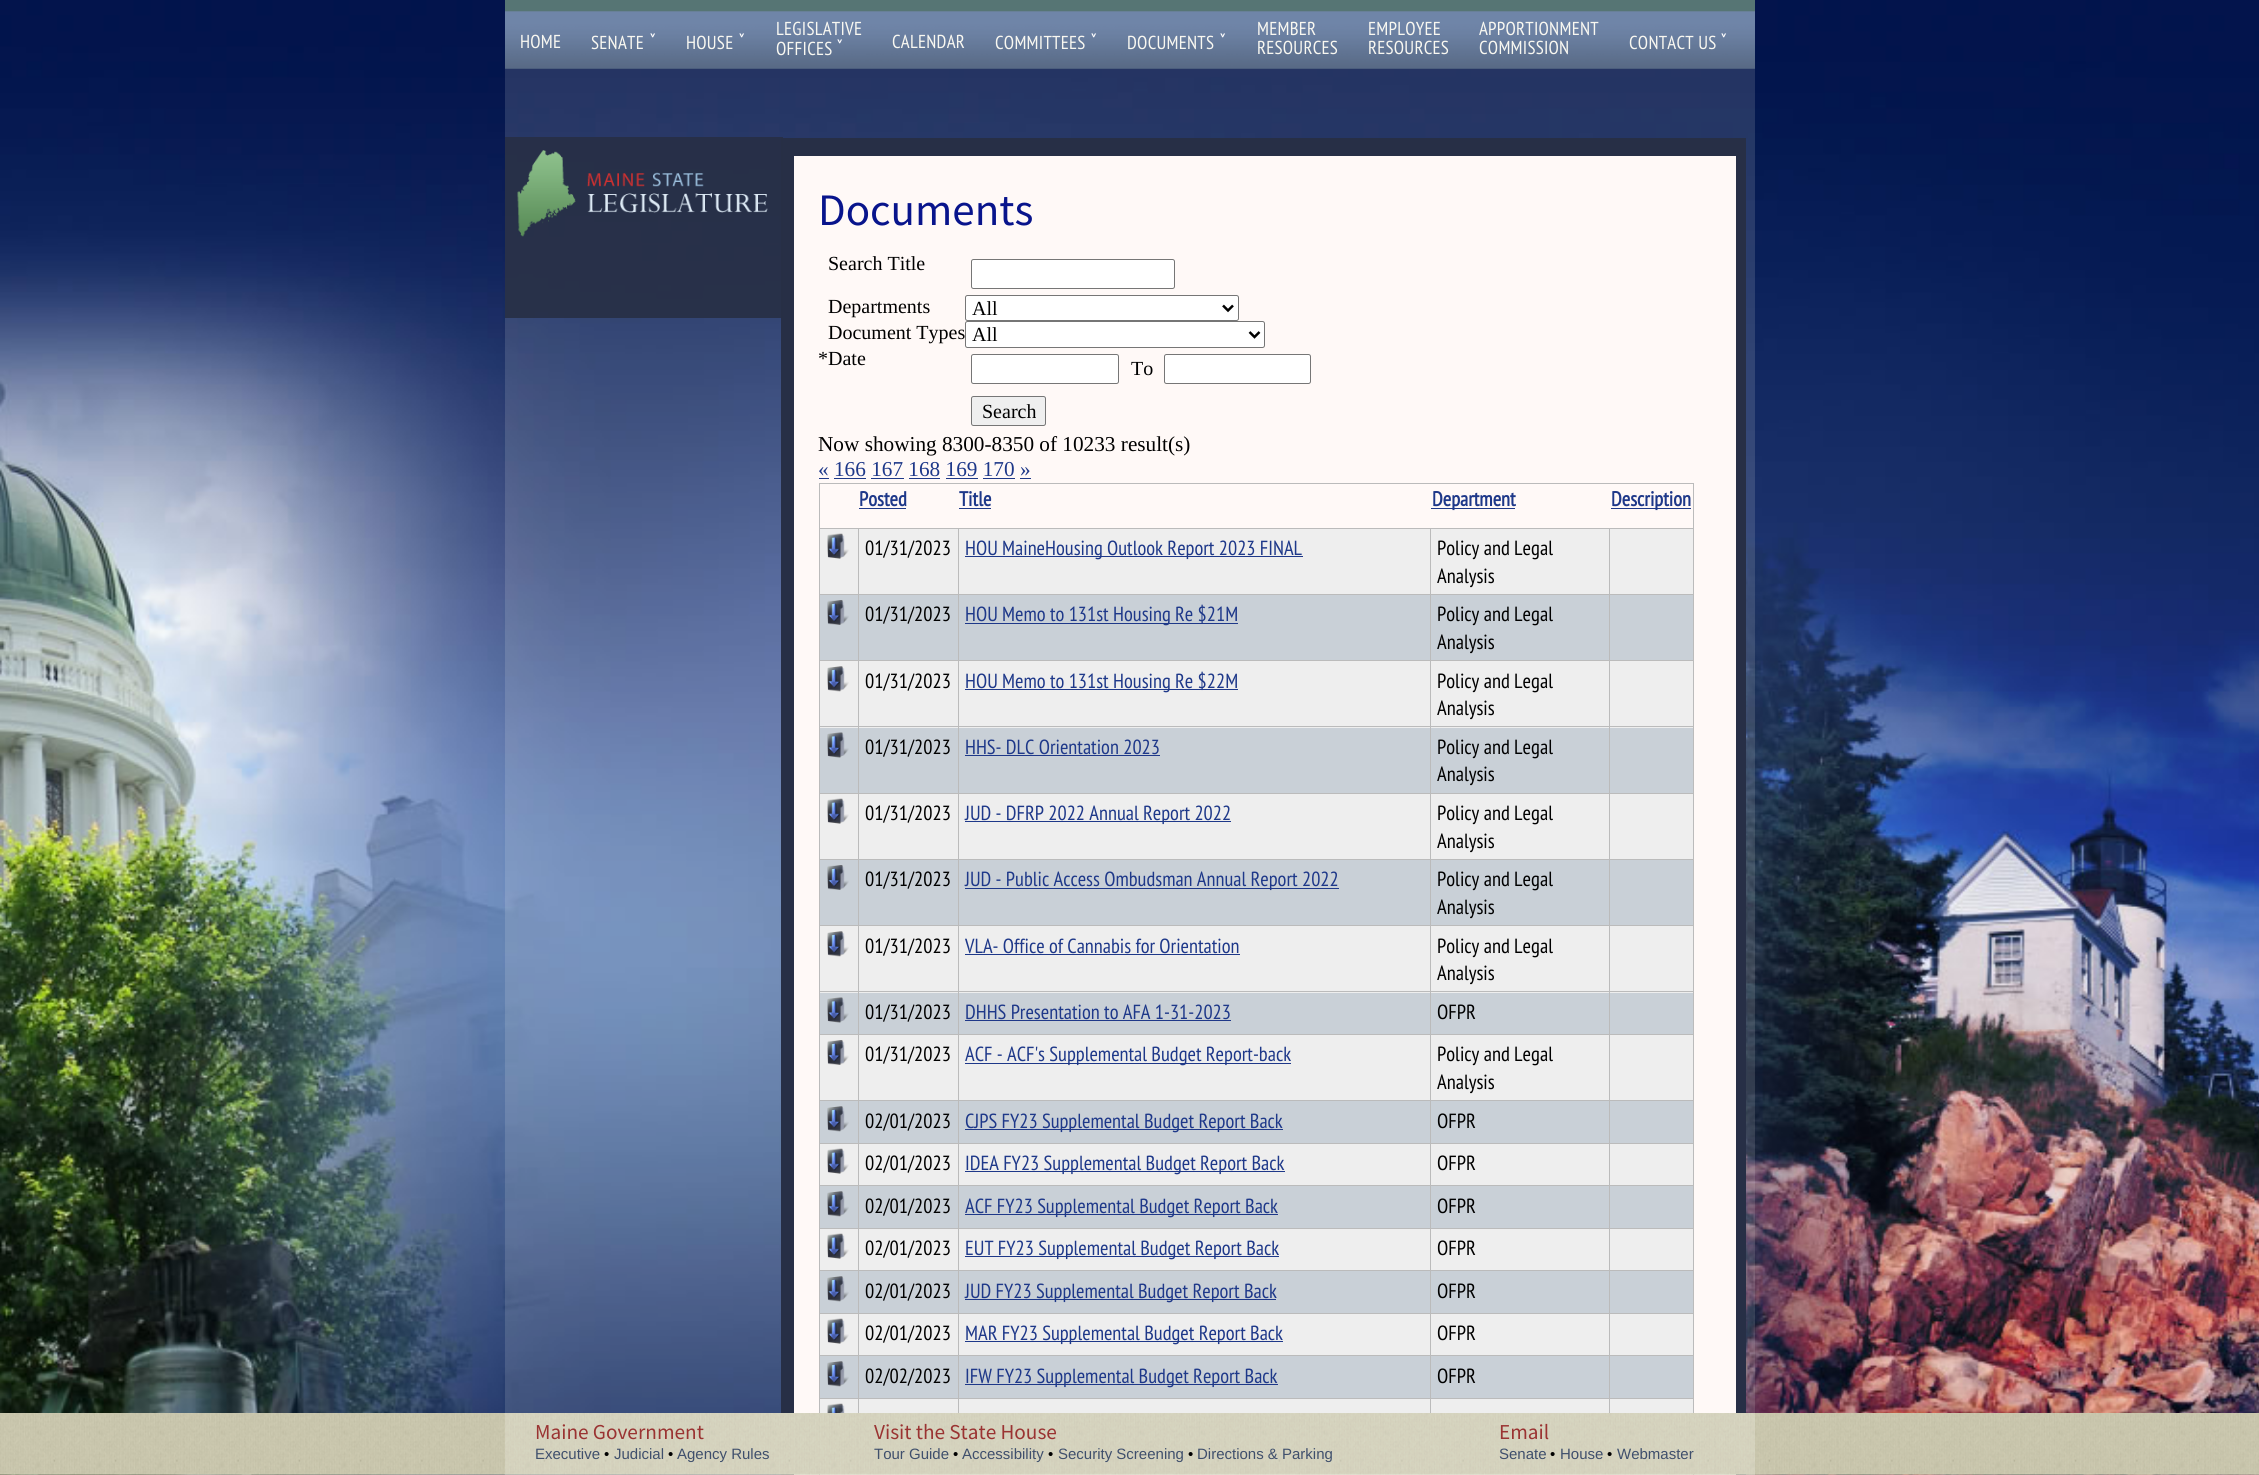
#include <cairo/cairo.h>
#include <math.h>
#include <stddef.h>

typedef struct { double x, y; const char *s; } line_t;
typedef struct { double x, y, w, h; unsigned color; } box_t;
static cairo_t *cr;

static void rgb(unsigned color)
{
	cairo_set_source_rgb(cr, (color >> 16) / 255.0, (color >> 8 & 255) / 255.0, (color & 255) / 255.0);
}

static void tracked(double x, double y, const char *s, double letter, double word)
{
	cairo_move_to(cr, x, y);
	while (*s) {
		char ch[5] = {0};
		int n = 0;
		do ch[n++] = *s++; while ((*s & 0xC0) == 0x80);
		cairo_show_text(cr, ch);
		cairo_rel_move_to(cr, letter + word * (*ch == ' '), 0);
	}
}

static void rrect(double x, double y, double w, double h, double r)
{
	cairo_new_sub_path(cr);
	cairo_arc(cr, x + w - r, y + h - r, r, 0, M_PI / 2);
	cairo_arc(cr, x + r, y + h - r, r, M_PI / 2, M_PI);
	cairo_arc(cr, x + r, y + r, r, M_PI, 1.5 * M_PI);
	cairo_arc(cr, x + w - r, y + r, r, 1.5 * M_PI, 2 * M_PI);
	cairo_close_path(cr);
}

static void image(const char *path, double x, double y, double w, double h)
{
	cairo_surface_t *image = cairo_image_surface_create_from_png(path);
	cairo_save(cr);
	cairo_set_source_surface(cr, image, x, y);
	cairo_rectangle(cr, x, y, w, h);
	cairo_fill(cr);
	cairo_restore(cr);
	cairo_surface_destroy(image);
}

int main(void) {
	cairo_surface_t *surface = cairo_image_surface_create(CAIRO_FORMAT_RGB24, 2259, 1475);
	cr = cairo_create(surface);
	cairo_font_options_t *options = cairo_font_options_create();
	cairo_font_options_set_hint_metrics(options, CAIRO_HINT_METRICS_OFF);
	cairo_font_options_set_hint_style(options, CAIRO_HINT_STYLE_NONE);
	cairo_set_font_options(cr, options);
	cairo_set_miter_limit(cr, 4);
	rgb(0xffffff);
	cairo_paint(cr);
	image("img/1.png", 0, 0, 2259, 1475);
	cairo_set_source_rgba(cr, 0.973, 0.973, 0.945, 0.14);
	cairo_rectangle(cr, 505, 68, 1250, 1407);
	cairo_fill(cr);
	image("img/2.png", 505, 0, 1250, 69);
	rgb(0x272f46);
	cairo_rectangle(cr, 781, 138, 965, 1337);
	cairo_fill(cr);
	cairo_set_source_rgba(cr, 0.153, 0.184, 0.271, 0.9);
	cairo_rectangle(cr, 505, 137, 278, 181);
	cairo_fill(cr);
	image("img/3.png", 517, 150, 251, 87);
	rgb(0xfff9f7);
	cairo_rectangle(cr, 794, 156, 942, 1319);
	cairo_fill(cr);
	rgb(0xffffff);
	rrect(971.5, 259.5, 203, 29, 2);
	cairo_fill_preserve(cr);
	rgb(0x767676);
	cairo_set_line_width(cr, 1);
	cairo_stroke(cr);
	rgb(0xffffff);
	rrect(965.5, 295.5, 273, 25, 2);
	cairo_fill_preserve(cr);
	rgb(0x767676);
	cairo_stroke(cr);
	cairo_new_path(cr);
	cairo_move_to(cr, 1223, 305.5);
	cairo_line_to(cr, 1228, 310.5);
	cairo_line_to(cr, 1233, 305.5);
	rgb(0x000000);
	cairo_set_line_width(cr, 2.5);
	cairo_stroke(cr);
	rgb(0xffffff);
	rrect(965.5, 321.5, 299, 26, 2);
	cairo_fill_preserve(cr);
	rgb(0x767676);
	cairo_set_line_width(cr, 1);
	cairo_stroke(cr);
	cairo_new_path(cr);
	cairo_move_to(cr, 1249.5, 332);
	cairo_line_to(cr, 1254.5, 337);
	cairo_line_to(cr, 1259.5, 332);
	rgb(0x000000);
	cairo_set_line_width(cr, 2.5);
	cairo_stroke(cr);
	rgb(0xffffff);
	rrect(971.5, 354.5, 147, 29, 2);
	cairo_fill_preserve(cr);
	rgb(0x767676);
	cairo_set_line_width(cr, 1);
	cairo_stroke(cr);
	rgb(0xffffff);
	rrect(1164.5, 354.5, 146, 29, 2);
	cairo_fill_preserve(cr);
	rgb(0x767676);
	cairo_stroke(cr);
	rgb(0xefefef);
	rrect(971.5, 396.5, 74, 29, 2);
	cairo_fill_preserve(cr);
	rgb(0x767676);
	cairo_stroke(cr);
	{
		static const box_t items[] = {
			{819, 478, 10, 1, 0x1e3889},
			{834, 478, 32, 1, 0x1e3889},
			{871, 478, 33, 1, 0x1e3889},
			{909, 478, 31, 1, 0x1e3889},
			{946, 478, 32, 1, 0x1e3889},
			{983, 478, 32, 1, 0x1e3889},
			{1020, 478, 11, 1, 0x1e3889},
			{819, 483, 875, 1, 0xbbbbbb},
			{1693, 483, 1, 992, 0xbbbbbb},
			{819, 483, 1, 992, 0xbbbbbb},
			{859, 508, 47, 1, 0x1e3889},
			{959, 508, 32, 1, 0x1e3889},
			{1431, 508, 84, 1, 0x1e3889},
			{1611, 508, 80, 1, 0x1e3889},
			{820, 529, 38, 65, 0xeeeeee},
			{1609, 528, 85, 1, 0xbbbbbb},
			{1609, 594, 85, 1, 0xbbbbbb},
			{1609, 660, 85, 1, 0xbbbbbb},
			{1431, 661, 178, 67, 0xeeeeee},
			{1610, 661, 83, 67, 0xeeeeee},
			{1609, 726, 85, 1, 0xbbbbbb},
			{1609, 793, 85, 1, 0xbbbbbb},
			{1609, 859, 85, 1, 0xbbbbbb},
			{1609, 925, 85, 1, 0xbbbbbb},
			{1431, 926, 178, 67, 0xeeeeee},
			{1610, 926, 83, 67, 0xeeeeee},
			{1609, 991, 85, 1, 0xbbbbbb},
			{1609, 1034, 85, 1, 0xbbbbbb},
			{1609, 1100, 85, 1, 0xbbbbbb},
			{1609, 1143, 85, 1, 0xbbbbbb},
			{1609, 1185, 85, 1, 0xbbbbbb},
			{1609, 1228, 85, 1, 0xbbbbbb},
			{1609, 1270, 85, 1, 0xbbbbbb},
			{1609, 1313, 85, 1, 0xbbbbbb},
			{1609, 1355, 85, 1, 0xbbbbbb},
			{1609, 1398, 85, 1, 0xbbbbbb},
			{1609, 1398, 1, 15, 0xbbbbbb},
			{1430, 1398, 180, 1, 0xbbbbbb},
			{1609, 1355, 1, 44, 0xbbbbbb},
			{1430, 1355, 180, 1, 0xbbbbbb},
			{1609, 1313, 1, 43, 0xbbbbbb},
			{1430, 1313, 180, 1, 0xbbbbbb},
			{1609, 1270, 1, 44, 0xbbbbbb},
			{1430, 1270, 180, 1, 0xbbbbbb},
			{1609, 1228, 1, 43, 0xbbbbbb},
			{1430, 1228, 180, 1, 0xbbbbbb},
			{1609, 1185, 1, 44, 0xbbbbbb},
			{1430, 1185, 180, 1, 0xbbbbbb},
			{1609, 1143, 1, 43, 0xbbbbbb},
			{1430, 1143, 180, 1, 0xbbbbbb},
			{1609, 1100, 1, 44, 0xbbbbbb},
			{1430, 1100, 180, 1, 0xbbbbbb},
			{1609, 1034, 1, 67, 0xbbbbbb},
			{1430, 1034, 180, 1, 0xbbbbbb},
			{1609, 991, 1, 44, 0xbbbbbb},
			{1430, 991, 180, 1, 0xbbbbbb},
			{1609, 925, 1, 68, 0xbbbbbb},
			{1430, 925, 180, 1, 0xbbbbbb},
			{1609, 859, 1, 67, 0xbbbbbb},
			{1430, 859, 180, 1, 0xbbbbbb},
			{1609, 793, 1, 67, 0xbbbbbb},
			{1430, 793, 180, 1, 0xbbbbbb},
			{1609, 726, 1, 68, 0xbbbbbb},
			{1430, 726, 180, 1, 0xbbbbbb},
			{1609, 660, 1, 68, 0xbbbbbb},
			{1430, 660, 180, 1, 0xbbbbbb},
			{1609, 594, 1, 67, 0xbbbbbb},
			{1430, 594, 180, 1, 0xbbbbbb},
			{1609, 528, 1, 67, 0xbbbbbb},
			{1430, 528, 180, 1, 0xbbbbbb},
			{959, 661, 471, 67, 0xeeeeee},
			{959, 926, 471, 67, 0xeeeeee},
			{1430, 1398, 1, 15, 0xbbbbbb},
			{958, 1398, 473, 1, 0xbbbbbb},
			{1430, 1355, 1, 44, 0xbbbbbb},
			{958, 1355, 473, 1, 0xbbbbbb},
			{1430, 1313, 1, 43, 0xbbbbbb},
			{958, 1313, 473, 1, 0xbbbbbb},
			{1430, 1270, 1, 44, 0xbbbbbb},
			{958, 1270, 473, 1, 0xbbbbbb},
			{1430, 1228, 1, 43, 0xbbbbbb},
			{958, 1228, 473, 1, 0xbbbbbb},
			{1430, 1185, 1, 44, 0xbbbbbb},
			{958, 1185, 473, 1, 0xbbbbbb},
			{1430, 1143, 1, 43, 0xbbbbbb},
			{958, 1143, 473, 1, 0xbbbbbb},
			{1430, 1100, 1, 44, 0xbbbbbb},
			{958, 1100, 473, 1, 0xbbbbbb},
			{1430, 1034, 1, 67, 0xbbbbbb},
			{958, 1034, 473, 1, 0xbbbbbb},
			{1430, 991, 1, 44, 0xbbbbbb},
			{958, 991, 473, 1, 0xbbbbbb},
			{1430, 925, 1, 68, 0xbbbbbb},
			{958, 925, 473, 1, 0xbbbbbb},
			{1430, 859, 1, 67, 0xbbbbbb},
			{958, 859, 473, 1, 0xbbbbbb},
			{1430, 793, 1, 67, 0xbbbbbb},
			{958, 793, 473, 1, 0xbbbbbb},
			{1430, 726, 1, 68, 0xbbbbbb},
			{958, 726, 473, 1, 0xbbbbbb},
			{1430, 660, 1, 68, 0xbbbbbb},
			{958, 660, 473, 1, 0xbbbbbb},
			{1430, 594, 1, 67, 0xbbbbbb},
			{958, 594, 473, 1, 0xbbbbbb},
			{1430, 528, 1, 67, 0xbbbbbb},
			{958, 528, 473, 1, 0xbbbbbb},
			{859, 661, 99, 67, 0xeeeeee},
			{859, 926, 99, 67, 0xeeeeee},
			{958, 1398, 1, 15, 0xbbbbbb},
			{858, 1398, 101, 1, 0xbbbbbb},
			{958, 1355, 1, 44, 0xbbbbbb},
			{858, 1355, 101, 1, 0xbbbbbb},
			{958, 1313, 1, 43, 0xbbbbbb},
			{858, 1313, 101, 1, 0xbbbbbb},
			{958, 1270, 1, 44, 0xbbbbbb},
			{858, 1270, 101, 1, 0xbbbbbb},
			{958, 1228, 1, 43, 0xbbbbbb},
			{858, 1228, 101, 1, 0xbbbbbb},
			{958, 1185, 1, 44, 0xbbbbbb},
			{858, 1185, 101, 1, 0xbbbbbb},
			{958, 1143, 1, 43, 0xbbbbbb},
			{858, 1143, 101, 1, 0xbbbbbb},
			{958, 1100, 1, 44, 0xbbbbbb},
			{858, 1100, 101, 1, 0xbbbbbb},
			{958, 1034, 1, 67, 0xbbbbbb},
			{858, 1034, 101, 1, 0xbbbbbb},
			{958, 991, 1, 44, 0xbbbbbb},
			{858, 991, 101, 1, 0xbbbbbb},
			{958, 925, 1, 68, 0xbbbbbb},
			{858, 925, 101, 1, 0xbbbbbb},
			{958, 859, 1, 67, 0xbbbbbb},
			{858, 859, 101, 1, 0xbbbbbb},
			{958, 793, 1, 67, 0xbbbbbb},
			{858, 793, 101, 1, 0xbbbbbb},
			{958, 726, 1, 68, 0xbbbbbb},
			{858, 726, 101, 1, 0xbbbbbb},
			{958, 660, 1, 68, 0xbbbbbb},
			{858, 660, 101, 1, 0xbbbbbb},
			{958, 594, 1, 67, 0xbbbbbb},
			{858, 594, 101, 1, 0xbbbbbb},
			{958, 528, 1, 67, 0xbbbbbb},
			{858, 528, 101, 1, 0xbbbbbb},
			{820, 661, 38, 67, 0xeeeeee},
			{820, 926, 38, 67, 0xeeeeee},
			{858, 1398, 1, 15, 0xbbbbbb},
			{819, 1398, 40, 1, 0xbbbbbb},
			{858, 1355, 1, 44, 0xbbbbbb},
			{819, 1355, 40, 1, 0xbbbbbb},
			{858, 1313, 1, 43, 0xbbbbbb},
			{819, 1313, 40, 1, 0xbbbbbb},
			{858, 1270, 1, 44, 0xbbbbbb},
			{819, 1270, 40, 1, 0xbbbbbb},
			{858, 1228, 1, 43, 0xbbbbbb},
			{819, 1228, 40, 1, 0xbbbbbb},
			{858, 1185, 1, 44, 0xbbbbbb},
			{819, 1185, 40, 1, 0xbbbbbb},
			{858, 1143, 1, 43, 0xbbbbbb},
			{819, 1143, 40, 1, 0xbbbbbb},
			{858, 1100, 1, 44, 0xbbbbbb},
			{819, 1100, 40, 1, 0xbbbbbb},
			{858, 1034, 1, 67, 0xbbbbbb},
			{819, 1034, 40, 1, 0xbbbbbb},
			{858, 991, 1, 44, 0xbbbbbb},
			{819, 991, 40, 1, 0xbbbbbb},
			{858, 925, 1, 68, 0xbbbbbb},
			{819, 925, 40, 1, 0xbbbbbb},
			{858, 859, 1, 67, 0xbbbbbb},
			{819, 859, 40, 1, 0xbbbbbb},
			{858, 793, 1, 67, 0xbbbbbb},
			{819, 793, 40, 1, 0xbbbbbb},
			{858, 726, 1, 68, 0xbbbbbb},
			{819, 726, 40, 1, 0xbbbbbb},
			{858, 660, 1, 68, 0xbbbbbb},
			{819, 660, 40, 1, 0xbbbbbb},
			{858, 594, 1, 67, 0xbbbbbb},
			{819, 594, 40, 1, 0xbbbbbb},
			{858, 528, 1, 67, 0xbbbbbb},
			{819, 528, 40, 1, 0xbbbbbb},
		};
		for (size_t i = 0; i < sizeof items / sizeof *items; i++) {
			rgb(items[i].color);
			cairo_rectangle(cr, items[i].x, items[i].y, items[i].w, items[i].h);
			cairo_fill(cr);
		}
	}
	image("img/4.png", 827, 533, 22, 26);
	{
		static const box_t items[] = {
			{859, 529, 99, 65, 0xeeeeee},
			{959, 529, 471, 65, 0xeeeeee},
			{965, 556, 338, 1, 0x1e3889},
			{1431, 529, 178, 65, 0xeeeeee},
			{1610, 529, 83, 65, 0xeeeeee},
			{820, 595, 38, 65, 0xc9d0d7},
		};
		for (size_t i = 0; i < sizeof items / sizeof *items; i++) {
			rgb(items[i].color);
			cairo_rectangle(cr, items[i].x, items[i].y, items[i].w, items[i].h);
			cairo_fill(cr);
		}
	}
	image("img/5.png", 827, 600, 22, 25);
	{
		static const box_t items[] = {
			{859, 595, 99, 65, 0xc9d0d7},
			{959, 595, 471, 65, 0xc9d0d7},
			{965, 623, 273, 1, 0x1e3889},
			{1431, 595, 178, 65, 0xc9d0d7},
			{1610, 595, 83, 65, 0xc9d0d7},
		};
		for (size_t i = 0; i < sizeof items / sizeof *items; i++) {
			rgb(items[i].color);
			cairo_rectangle(cr, items[i].x, items[i].y, items[i].w, items[i].h);
			cairo_fill(cr);
		}
	}
	image("img/6.png", 827, 666, 22, 26);
	rgb(0x1e3889);
	cairo_rectangle(cr, 965, 689, 273, 1);
	cairo_fill(cr);
	rgb(0xc9d0d7);
	cairo_rectangle(cr, 820, 728, 38, 65);
	cairo_fill(cr);
	image("img/7.png", 827, 732, 22, 26);
	{
		static const box_t items[] = {
			{859, 728, 99, 65, 0xc9d0d7},
			{959, 728, 471, 65, 0xc9d0d7},
			{965, 755, 195, 1, 0x1e3889},
			{1431, 728, 178, 65, 0xc9d0d7},
			{1610, 728, 83, 65, 0xc9d0d7},
			{820, 794, 38, 65, 0xeeeeee},
		};
		for (size_t i = 0; i < sizeof items / sizeof *items; i++) {
			rgb(items[i].color);
			cairo_rectangle(cr, items[i].x, items[i].y, items[i].w, items[i].h);
			cairo_fill(cr);
		}
	}
	image("img/4.png", 827, 798, 22, 26);
	{
		static const box_t items[] = {
			{859, 794, 99, 65, 0xeeeeee},
			{959, 794, 471, 65, 0xeeeeee},
			{965, 821, 266, 1, 0x1e3889},
			{1431, 794, 178, 65, 0xeeeeee},
			{1610, 794, 83, 65, 0xeeeeee},
			{820, 860, 38, 65, 0xc9d0d7},
		};
		for (size_t i = 0; i < sizeof items / sizeof *items; i++) {
			rgb(items[i].color);
			cairo_rectangle(cr, items[i].x, items[i].y, items[i].w, items[i].h);
			cairo_fill(cr);
		}
	}
	image("img/5.png", 827, 865, 22, 25);
	{
		static const box_t items[] = {
			{859, 860, 99, 65, 0xc9d0d7},
			{959, 860, 471, 65, 0xc9d0d7},
			{965, 888, 374, 1, 0x1e3889},
			{1431, 860, 178, 65, 0xc9d0d7},
			{1610, 860, 83, 65, 0xc9d0d7},
		};
		for (size_t i = 0; i < sizeof items / sizeof *items; i++) {
			rgb(items[i].color);
			cairo_rectangle(cr, items[i].x, items[i].y, items[i].w, items[i].h);
			cairo_fill(cr);
		}
	}
	image("img/6.png", 827, 931, 22, 26);
	rgb(0x1e3889);
	cairo_rectangle(cr, 965, 954, 275, 1);
	cairo_fill(cr);
	rgb(0xc9d0d7);
	cairo_rectangle(cr, 820, 993, 38, 41);
	cairo_fill(cr);
	image("img/7.png", 827, 997, 22, 26);
	{
		static const box_t items[] = {
			{859, 993, 99, 41, 0xc9d0d7},
			{959, 993, 471, 41, 0xc9d0d7},
			{965, 1020, 266, 1, 0x1e3889},
			{1431, 993, 178, 41, 0xc9d0d7},
			{1610, 993, 83, 41, 0xc9d0d7},
			{820, 1035, 38, 65, 0xeeeeee},
		};
		for (size_t i = 0; i < sizeof items / sizeof *items; i++) {
			rgb(items[i].color);
			cairo_rectangle(cr, items[i].x, items[i].y, items[i].w, items[i].h);
			cairo_fill(cr);
		}
	}
	image("img/8.png", 827, 1040, 22, 25);
	{
		static const box_t items[] = {
			{859, 1035, 99, 65, 0xeeeeee},
			{959, 1035, 471, 65, 0xeeeeee},
			{965, 1063, 326, 1, 0x1e3889},
			{1431, 1035, 178, 65, 0xeeeeee},
			{1610, 1035, 83, 65, 0xeeeeee},
			{820, 1101, 38, 42, 0xc9d0d7},
		};
		for (size_t i = 0; i < sizeof items / sizeof *items; i++) {
			rgb(items[i].color);
			cairo_rectangle(cr, items[i].x, items[i].y, items[i].w, items[i].h);
			cairo_fill(cr);
		}
	}
	image("img/9.png", 827, 1106, 22, 26);
	{
		static const box_t items[] = {
			{859, 1101, 99, 42, 0xc9d0d7},
			{959, 1101, 471, 42, 0xc9d0d7},
			{965, 1129, 318, 1, 0x1e3889},
			{1431, 1101, 178, 42, 0xc9d0d7},
			{1610, 1101, 83, 42, 0xc9d0d7},
			{820, 1144, 38, 41, 0xeeeeee},
		};
		for (size_t i = 0; i < sizeof items / sizeof *items; i++) {
			rgb(items[i].color);
			cairo_rectangle(cr, items[i].x, items[i].y, items[i].w, items[i].h);
			cairo_fill(cr);
		}
	}
	image("img/4.png", 827, 1148, 22, 26);
	{
		static const box_t items[] = {
			{859, 1144, 99, 41, 0xeeeeee},
			{959, 1144, 471, 41, 0xeeeeee},
			{965, 1171, 320, 1, 0x1e3889},
			{1431, 1144, 178, 41, 0xeeeeee},
			{1610, 1144, 83, 41, 0xeeeeee},
			{820, 1186, 38, 42, 0xc9d0d7},
		};
		for (size_t i = 0; i < sizeof items / sizeof *items; i++) {
			rgb(items[i].color);
			cairo_rectangle(cr, items[i].x, items[i].y, items[i].w, items[i].h);
			cairo_fill(cr);
		}
	}
	image("img/9.png", 827, 1191, 22, 26);
	{
		static const box_t items[] = {
			{859, 1186, 99, 42, 0xc9d0d7},
			{959, 1186, 471, 42, 0xc9d0d7},
			{965, 1214, 313, 1, 0x1e3889},
			{1431, 1186, 178, 42, 0xc9d0d7},
			{1610, 1186, 83, 42, 0xc9d0d7},
			{820, 1229, 38, 41, 0xeeeeee},
		};
		for (size_t i = 0; i < sizeof items / sizeof *items; i++) {
			rgb(items[i].color);
			cairo_rectangle(cr, items[i].x, items[i].y, items[i].w, items[i].h);
			cairo_fill(cr);
		}
	}
	image("img/4.png", 827, 1233, 22, 26);
	{
		static const box_t items[] = {
			{859, 1229, 99, 41, 0xeeeeee},
			{959, 1229, 471, 41, 0xeeeeee},
			{965, 1256, 314, 1, 0x1e3889},
			{1431, 1229, 178, 41, 0xeeeeee},
			{1610, 1229, 83, 41, 0xeeeeee},
			{820, 1271, 38, 42, 0xc9d0d7},
		};
		for (size_t i = 0; i < sizeof items / sizeof *items; i++) {
			rgb(items[i].color);
			cairo_rectangle(cr, items[i].x, items[i].y, items[i].w, items[i].h);
			cairo_fill(cr);
		}
	}
	image("img/9.png", 827, 1276, 22, 26);
	{
		static const box_t items[] = {
			{859, 1271, 99, 42, 0xc9d0d7},
			{959, 1271, 471, 42, 0xc9d0d7},
			{965, 1299, 311, 1, 0x1e3889},
			{1431, 1271, 178, 42, 0xc9d0d7},
			{1610, 1271, 83, 42, 0xc9d0d7},
			{820, 1314, 38, 41, 0xeeeeee},
		};
		for (size_t i = 0; i < sizeof items / sizeof *items; i++) {
			rgb(items[i].color);
			cairo_rectangle(cr, items[i].x, items[i].y, items[i].w, items[i].h);
			cairo_fill(cr);
		}
	}
	image("img/4.png", 827, 1318, 22, 26);
	{
		static const box_t items[] = {
			{859, 1314, 99, 41, 0xeeeeee},
			{959, 1314, 471, 41, 0xeeeeee},
			{965, 1341, 318, 1, 0x1e3889},
			{1431, 1314, 178, 41, 0xeeeeee},
			{1610, 1314, 83, 41, 0xeeeeee},
			{820, 1356, 38, 42, 0xc9d0d7},
		};
		for (size_t i = 0; i < sizeof items / sizeof *items; i++) {
			rgb(items[i].color);
			cairo_rectangle(cr, items[i].x, items[i].y, items[i].w, items[i].h);
			cairo_fill(cr);
		}
	}
	image("img/9.png", 827, 1361, 22, 26);
	{
		static const box_t items[] = {
			{859, 1356, 99, 42, 0xc9d0d7},
			{959, 1356, 471, 42, 0xc9d0d7},
			{965, 1384, 313, 1, 0x1e3889},
			{1431, 1356, 178, 42, 0xc9d0d7},
			{1610, 1356, 83, 42, 0xc9d0d7},
			{820, 1399, 38, 14, 0xeeeeee},
		};
		for (size_t i = 0; i < sizeof items / sizeof *items; i++) {
			rgb(items[i].color);
			cairo_rectangle(cr, items[i].x, items[i].y, items[i].w, items[i].h);
			cairo_fill(cr);
		}
	}
	image("img/10.png", 827, 1403, 18, 10);
	{
		static const box_t items[] = {
			{859, 1399, 99, 14, 0xeeeeee},
			{959, 1399, 471, 14, 0xeeeeee},
			{1431, 1399, 178, 14, 0xeeeeee},
			{1610, 1399, 83, 14, 0xeeeeee},
		};
		for (size_t i = 0; i < sizeof items / sizeof *items; i++) {
			rgb(items[i].color);
			cairo_rectangle(cr, items[i].x, items[i].y, items[i].w, items[i].h);
			cairo_fill(cr);
		}
	}
	image("img/11.png", 0, 1413, 2259, 62);
	cairo_set_source_rgba(cr, 0.973, 0.973, 0.945, 0.14);
	cairo_rectangle(cr, 505, 1413, 1250, 62);
	cairo_fill(cr);
	cairo_rectangle(cr, 505, 1413, 1250, 62);
	cairo_fill(cr);
	cairo_select_font_face(cr, "PT Sans Narrow", CAIRO_FONT_SLANT_NORMAL, CAIRO_FONT_WEIGHT_NORMAL);
	cairo_set_font_size(cr, 18.75);
	rgb(0xf9f8f1);
	tracked(520, 48, "HOME", 0.25, 0);
	tracked(591, 49, "SENATE", 0.25, 0);
	cairo_set_font_size(cr, 21.25);
	rgb(0xffffff);
	tracked(649, 49, "ˇ", 0.25, 0);
	cairo_set_font_size(cr, 18.75);
	rgb(0xf9f8f1);
	tracked(686, 49, "HOUSE", 0.25, 0);
	cairo_set_font_size(cr, 21.25);
	rgb(0xffffff);
	tracked(738, 49, "ˇ", 0.25, 0);
	cairo_set_font_size(cr, 18.75);
	rgb(0xf9f8f1);
	tracked(776, 35, "LEGISLATIVE", 0.25, 0);
	tracked(776, 55, "OFFICES", 0.25, 0);
	cairo_set_font_size(cr, 21.25);
	rgb(0xffffff);
	tracked(836, 55, "ˇ", 0.25, 0);
	cairo_set_font_size(cr, 18.75);
	rgb(0xf9f8f1);
	tracked(892, 48, "CALENDAR", 0.25, 0);
	tracked(995, 49, "COMMITTEES", 0.25, 0);
	cairo_set_font_size(cr, 21.25);
	rgb(0xffffff);
	tracked(1090, 49, "ˇ", 0.25, 0);
	cairo_set_font_size(cr, 18.75);
	rgb(0xf9f8f1);
	tracked(1127, 49, "DOCUMENTS", 0.25, 0);
	cairo_set_font_size(cr, 21.25);
	rgb(0xffffff);
	tracked(1219, 49, "ˇ", 0.25, 0);
	cairo_set_font_size(cr, 18.75);
	rgb(0xf9f8f1);
	{
		static const line_t items[] = {
			{1257, 35, "MEMBER"},
			{1257, 54, "RESOURCES"},
			{1368, 35, "EMPLOYEE"},
			{1368, 54, "RESOURCES"},
			{1479, 35, "APPORTIONMENT"},
			{1479, 54, "COMMISSION"},
			{1629, 49, "CONTACT US"},
		};
		for (size_t i = 0; i < sizeof items / sizeof *items; i++) {
			tracked(items[i].x, items[i].y, items[i].s, 0.25, 0);
		}
	}
	cairo_set_font_size(cr, 21.25);
	rgb(0xffffff);
	tracked(1720, 49, "ˇ", 0.25, 0);
	cairo_select_font_face(cr, "Source Sans Pro", CAIRO_FONT_SLANT_NORMAL, CAIRO_FONT_WEIGHT_NORMAL);
	cairo_set_font_size(cr, 45);
	rgb(0x08148c);
	cairo_move_to(cr, 818, 225);
	cairo_show_text(cr, "Documents");
	cairo_select_font_face(cr, "Liberation Serif", CAIRO_FONT_SLANT_NORMAL, CAIRO_FONT_WEIGHT_NORMAL);
	cairo_set_font_size(cr, 20);
	rgb(0x000000);
	{
		static const line_t items[] = {
			{828, 270, "Search Title"},
			{828, 313, "Departments"},
			{972, 315, "All"},
			{828, 339, "Document Types"},
			{972, 341, "All"},
			{818, 365, "*Date"},
			{1131, 375, "To"},
			{982, 418, "Search"},
		};
		for (size_t i = 0; i < sizeof items / sizeof *items; i++) {
			cairo_move_to(cr, items[i].x, items[i].y);
			cairo_show_text(cr, items[i].s);
		}
	}
	cairo_set_font_size(cr, 21.25);
	cairo_move_to(cr, 818, 451);
	cairo_show_text(cr, "Now showing 8300-8350 of 10233 result(s)");
	rgb(0x1e3889);
	cairo_move_to(cr, 818, 476);
	cairo_show_text(cr, "« 166 167 168 169 170 »");
	cairo_select_font_face(cr, "PT Sans Narrow", CAIRO_FONT_SLANT_NORMAL, CAIRO_FONT_WEIGHT_BOLD);
	cairo_set_font_size(cr, 20.4);
	{
		static const line_t items[] = {
			{859, 506, "Posted"},
			{959, 506, "Title"},
			{1432, 506, "Department"},
			{1611, 506, "Description"},
		};
		for (size_t i = 0; i < sizeof items / sizeof *items; i++) {
			cairo_move_to(cr, items[i].x, items[i].y);
			cairo_show_text(cr, items[i].s);
		}
	}
	cairo_select_font_face(cr, "PT Sans Narrow", CAIRO_FONT_SLANT_NORMAL, CAIRO_FONT_WEIGHT_NORMAL);
	cairo_set_font_size(cr, 20.5);
	rgb(0x000000);
	cairo_move_to(cr, 865, 555);
	cairo_show_text(cr, "01/31/2023");
	cairo_set_font_size(cr, 20.4);
	rgb(0x1e3889);
	cairo_move_to(cr, 965, 555);
	cairo_show_text(cr, "HOU MaineHousing Outlook Report 2023 FINAL");
	cairo_set_font_size(cr, 20.5);
	rgb(0x000000);
	{
		static const line_t items[] = {
			{1437, 555, "Policy and Legal"},
			{1437, 583, "Analysis"},
			{865, 621, "01/31/2023"},
		};
		for (size_t i = 0; i < sizeof items / sizeof *items; i++) {
			cairo_move_to(cr, items[i].x, items[i].y);
			cairo_show_text(cr, items[i].s);
		}
	}
	cairo_set_font_size(cr, 20.4);
	rgb(0x1e3889);
	cairo_move_to(cr, 965, 621);
	cairo_show_text(cr, "HOU Memo to 131st Housing Re $21M");
	cairo_set_font_size(cr, 20.5);
	rgb(0x000000);
	{
		static const line_t items[] = {
			{1437, 621, "Policy and Legal"},
			{1437, 649, "Analysis"},
			{865, 688, "01/31/2023"},
		};
		for (size_t i = 0; i < sizeof items / sizeof *items; i++) {
			cairo_move_to(cr, items[i].x, items[i].y);
			cairo_show_text(cr, items[i].s);
		}
	}
	cairo_set_font_size(cr, 20.4);
	rgb(0x1e3889);
	cairo_move_to(cr, 965, 688);
	cairo_show_text(cr, "HOU Memo to 131st Housing Re $22M");
	cairo_set_font_size(cr, 20.5);
	rgb(0x000000);
	{
		static const line_t items[] = {
			{1437, 688, "Policy and Legal"},
			{1437, 715, "Analysis"},
			{865, 754, "01/31/2023"},
		};
		for (size_t i = 0; i < sizeof items / sizeof *items; i++) {
			cairo_move_to(cr, items[i].x, items[i].y);
			cairo_show_text(cr, items[i].s);
		}
	}
	cairo_set_font_size(cr, 20.4);
	rgb(0x1e3889);
	cairo_move_to(cr, 965, 754);
	cairo_show_text(cr, "HHS- DLC Orientation 2023");
	cairo_set_font_size(cr, 20.5);
	rgb(0x000000);
	{
		static const line_t items[] = {
			{1437, 754, "Policy and Legal"},
			{1437, 781, "Analysis"},
			{865, 820, "01/31/2023"},
		};
		for (size_t i = 0; i < sizeof items / sizeof *items; i++) {
			cairo_move_to(cr, items[i].x, items[i].y);
			cairo_show_text(cr, items[i].s);
		}
	}
	cairo_set_font_size(cr, 20.4);
	rgb(0x1e3889);
	cairo_move_to(cr, 965, 820);
	cairo_show_text(cr, "JUD - DFRP 2022 Annual Report 2022");
	cairo_set_font_size(cr, 20.5);
	rgb(0x000000);
	{
		static const line_t items[] = {
			{1437, 820, "Policy and Legal"},
			{1437, 848, "Analysis"},
			{865, 886, "01/31/2023"},
		};
		for (size_t i = 0; i < sizeof items / sizeof *items; i++) {
			cairo_move_to(cr, items[i].x, items[i].y);
			cairo_show_text(cr, items[i].s);
		}
	}
	cairo_set_font_size(cr, 20.4);
	rgb(0x1e3889);
	cairo_move_to(cr, 965, 886);
	cairo_show_text(cr, "JUD - Public Access Ombudsman Annual Report 2022");
	cairo_set_font_size(cr, 20.5);
	rgb(0x000000);
	{
		static const line_t items[] = {
			{1437, 886, "Policy and Legal"},
			{1437, 914, "Analysis"},
			{865, 953, "01/31/2023"},
		};
		for (size_t i = 0; i < sizeof items / sizeof *items; i++) {
			cairo_move_to(cr, items[i].x, items[i].y);
			cairo_show_text(cr, items[i].s);
		}
	}
	cairo_set_font_size(cr, 20.4);
	rgb(0x1e3889);
	cairo_move_to(cr, 965, 953);
	cairo_show_text(cr, "VLA- Office of Cannabis for Orientation");
	cairo_set_font_size(cr, 20.5);
	rgb(0x000000);
	{
		static const line_t items[] = {
			{1437, 953, "Policy and Legal"},
			{1437, 980, "Analysis"},
			{865, 1019, "01/31/2023"},
		};
		for (size_t i = 0; i < sizeof items / sizeof *items; i++) {
			cairo_move_to(cr, items[i].x, items[i].y);
			cairo_show_text(cr, items[i].s);
		}
	}
	cairo_set_font_size(cr, 20.4);
	rgb(0x1e3889);
	cairo_move_to(cr, 965, 1019);
	cairo_show_text(cr, "DHHS Presentation to AFA 1-31-2023");
	cairo_set_font_size(cr, 20.5);
	rgb(0x000000);
	cairo_move_to(cr, 1437, 1019);
	cairo_show_text(cr, "OFPR");
	cairo_move_to(cr, 865, 1061);
	cairo_show_text(cr, "01/31/2023");
	cairo_set_font_size(cr, 20.4);
	rgb(0x1e3889);
	cairo_move_to(cr, 965, 1061);
	cairo_show_text(cr, "ACF - ACF's Supplemental Budget Report-back");
	cairo_set_font_size(cr, 20.5);
	rgb(0x000000);
	{
		static const line_t items[] = {
			{1437, 1061, "Policy and Legal"},
			{1437, 1089, "Analysis"},
			{865, 1128, "02/01/2023"},
		};
		for (size_t i = 0; i < sizeof items / sizeof *items; i++) {
			cairo_move_to(cr, items[i].x, items[i].y);
			cairo_show_text(cr, items[i].s);
		}
	}
	cairo_set_font_size(cr, 20.4);
	rgb(0x1e3889);
	cairo_move_to(cr, 965, 1128);
	cairo_show_text(cr, "CJPS FY23 Supplemental Budget Report Back");
	cairo_set_font_size(cr, 20.5);
	rgb(0x000000);
	cairo_move_to(cr, 1437, 1128);
	cairo_show_text(cr, "OFPR");
	cairo_move_to(cr, 865, 1170);
	cairo_show_text(cr, "02/01/2023");
	cairo_set_font_size(cr, 20.4);
	rgb(0x1e3889);
	cairo_move_to(cr, 965, 1170);
	cairo_show_text(cr, "IDEA FY23 Supplemental Budget Report Back");
	cairo_set_font_size(cr, 20.5);
	rgb(0x000000);
	cairo_move_to(cr, 1437, 1170);
	cairo_show_text(cr, "OFPR");
	cairo_move_to(cr, 865, 1213);
	cairo_show_text(cr, "02/01/2023");
	cairo_set_font_size(cr, 20.4);
	rgb(0x1e3889);
	cairo_move_to(cr, 965, 1213);
	cairo_show_text(cr, "ACF FY23 Supplemental Budget Report Back");
	cairo_set_font_size(cr, 20.5);
	rgb(0x000000);
	cairo_move_to(cr, 1437, 1213);
	cairo_show_text(cr, "OFPR");
	cairo_move_to(cr, 865, 1255);
	cairo_show_text(cr, "02/01/2023");
	cairo_set_font_size(cr, 20.4);
	rgb(0x1e3889);
	cairo_move_to(cr, 965, 1255);
	cairo_show_text(cr, "EUT FY23 Supplemental Budget Report Back");
	cairo_set_font_size(cr, 20.5);
	rgb(0x000000);
	cairo_move_to(cr, 1437, 1255);
	cairo_show_text(cr, "OFPR");
	cairo_move_to(cr, 865, 1298);
	cairo_show_text(cr, "02/01/2023");
	cairo_set_font_size(cr, 20.4);
	rgb(0x1e3889);
	cairo_move_to(cr, 965, 1298);
	cairo_show_text(cr, "JUD FY23 Supplemental Budget Report Back");
	cairo_set_font_size(cr, 20.5);
	rgb(0x000000);
	cairo_move_to(cr, 1437, 1298);
	cairo_show_text(cr, "OFPR");
	cairo_move_to(cr, 865, 1340);
	cairo_show_text(cr, "02/01/2023");
	cairo_set_font_size(cr, 20.4);
	rgb(0x1e3889);
	cairo_move_to(cr, 965, 1340);
	cairo_show_text(cr, "MAR FY23 Supplemental Budget Report Back");
	cairo_set_font_size(cr, 20.5);
	rgb(0x000000);
	cairo_move_to(cr, 1437, 1340);
	cairo_show_text(cr, "OFPR");
	cairo_move_to(cr, 865, 1383);
	cairo_show_text(cr, "02/02/2023");
	cairo_set_font_size(cr, 20.4);
	rgb(0x1e3889);
	cairo_move_to(cr, 965, 1383);
	cairo_show_text(cr, "IFW FY23 Supplemental Budget Report Back");
	cairo_set_font_size(cr, 20.5);
	rgb(0x000000);
	cairo_move_to(cr, 1437, 1383);
	cairo_show_text(cr, "OFPR");
	cairo_select_font_face(cr, "Source Sans Pro", CAIRO_FONT_SLANT_NORMAL, CAIRO_FONT_WEIGHT_NORMAL);
	cairo_set_font_size(cr, 21.25);
	rgb(0x9a3332);
	cairo_move_to(cr, 535, 1439);
	cairo_show_text(cr, "Maine Government");
	cairo_select_font_face(cr, "Liberation Sans", CAIRO_FONT_SLANT_NORMAL, CAIRO_FONT_WEIGHT_NORMAL);
	cairo_set_font_size(cr, 15);
	rgb(0x3f4f6c);
	cairo_move_to(cr, 535, 1459);
	cairo_show_text(cr, "Executive");
	rgb(0x000000);
	cairo_move_to(cr, 604, 1459);
	cairo_show_text(cr, "•");
	rgb(0x3f4f6c);
	cairo_move_to(cr, 614, 1459);
	cairo_show_text(cr, "Judicial");
	rgb(0x000000);
	cairo_move_to(cr, 668, 1459);
	cairo_show_text(cr, "•");
	rgb(0x3f4f6c);
	cairo_move_to(cr, 677, 1459);
	cairo_show_text(cr, "Agency Rules");
	cairo_select_font_face(cr, "Source Sans Pro", CAIRO_FONT_SLANT_NORMAL, CAIRO_FONT_WEIGHT_NORMAL);
	cairo_set_font_size(cr, 21.25);
	rgb(0x9a3332);
	cairo_move_to(cr, 874, 1439);
	cairo_show_text(cr, "Visit the State House");
	cairo_select_font_face(cr, "Liberation Sans", CAIRO_FONT_SLANT_NORMAL, CAIRO_FONT_WEIGHT_NORMAL);
	cairo_set_font_size(cr, 15);
	rgb(0x3f4f6c);
	cairo_move_to(cr, 874, 1459);
	cairo_show_text(cr, "Tour Guide");
	rgb(0x000000);
	cairo_move_to(cr, 953, 1459);
	cairo_show_text(cr, "•");
	rgb(0x3f4f6c);
	cairo_move_to(cr, 962, 1459);
	cairo_show_text(cr, "Accessibility");
	rgb(0x000000);
	cairo_move_to(cr, 1048, 1459);
	cairo_show_text(cr, "•");
	rgb(0x3f4f6c);
	cairo_move_to(cr, 1058, 1459);
	cairo_show_text(cr, "Security Screening");
	rgb(0x000000);
	cairo_move_to(cr, 1188, 1459);
	cairo_show_text(cr, "•");
	rgb(0x3f4f6c);
	cairo_move_to(cr, 1197, 1459);
	cairo_show_text(cr, "Directions & Parking");
	cairo_select_font_face(cr, "Source Sans Pro", CAIRO_FONT_SLANT_NORMAL, CAIRO_FONT_WEIGHT_NORMAL);
	cairo_set_font_size(cr, 21.25);
	rgb(0x9a3332);
	cairo_move_to(cr, 1499, 1439);
	cairo_show_text(cr, "Email");
	cairo_select_font_face(cr, "Liberation Sans", CAIRO_FONT_SLANT_NORMAL, CAIRO_FONT_WEIGHT_NORMAL);
	cairo_set_font_size(cr, 15);
	rgb(0x3f4f6c);
	cairo_move_to(cr, 1499, 1459);
	cairo_show_text(cr, "Senate");
	rgb(0x000000);
	cairo_move_to(cr, 1550, 1459);
	cairo_show_text(cr, "•");
	rgb(0x3f4f6c);
	cairo_move_to(cr, 1560, 1459);
	cairo_show_text(cr, "House");
	rgb(0x000000);
	cairo_move_to(cr, 1607, 1459);
	cairo_show_text(cr, "•");
	rgb(0x3f4f6c);
	cairo_move_to(cr, 1617, 1459);
	cairo_show_text(cr, "Webmaster");
	cairo_surface_write_to_png(surface, "page.png");
	cairo_font_options_destroy(options);
	cairo_destroy(cr);
	cairo_surface_destroy(surface);
	return 0;
}
